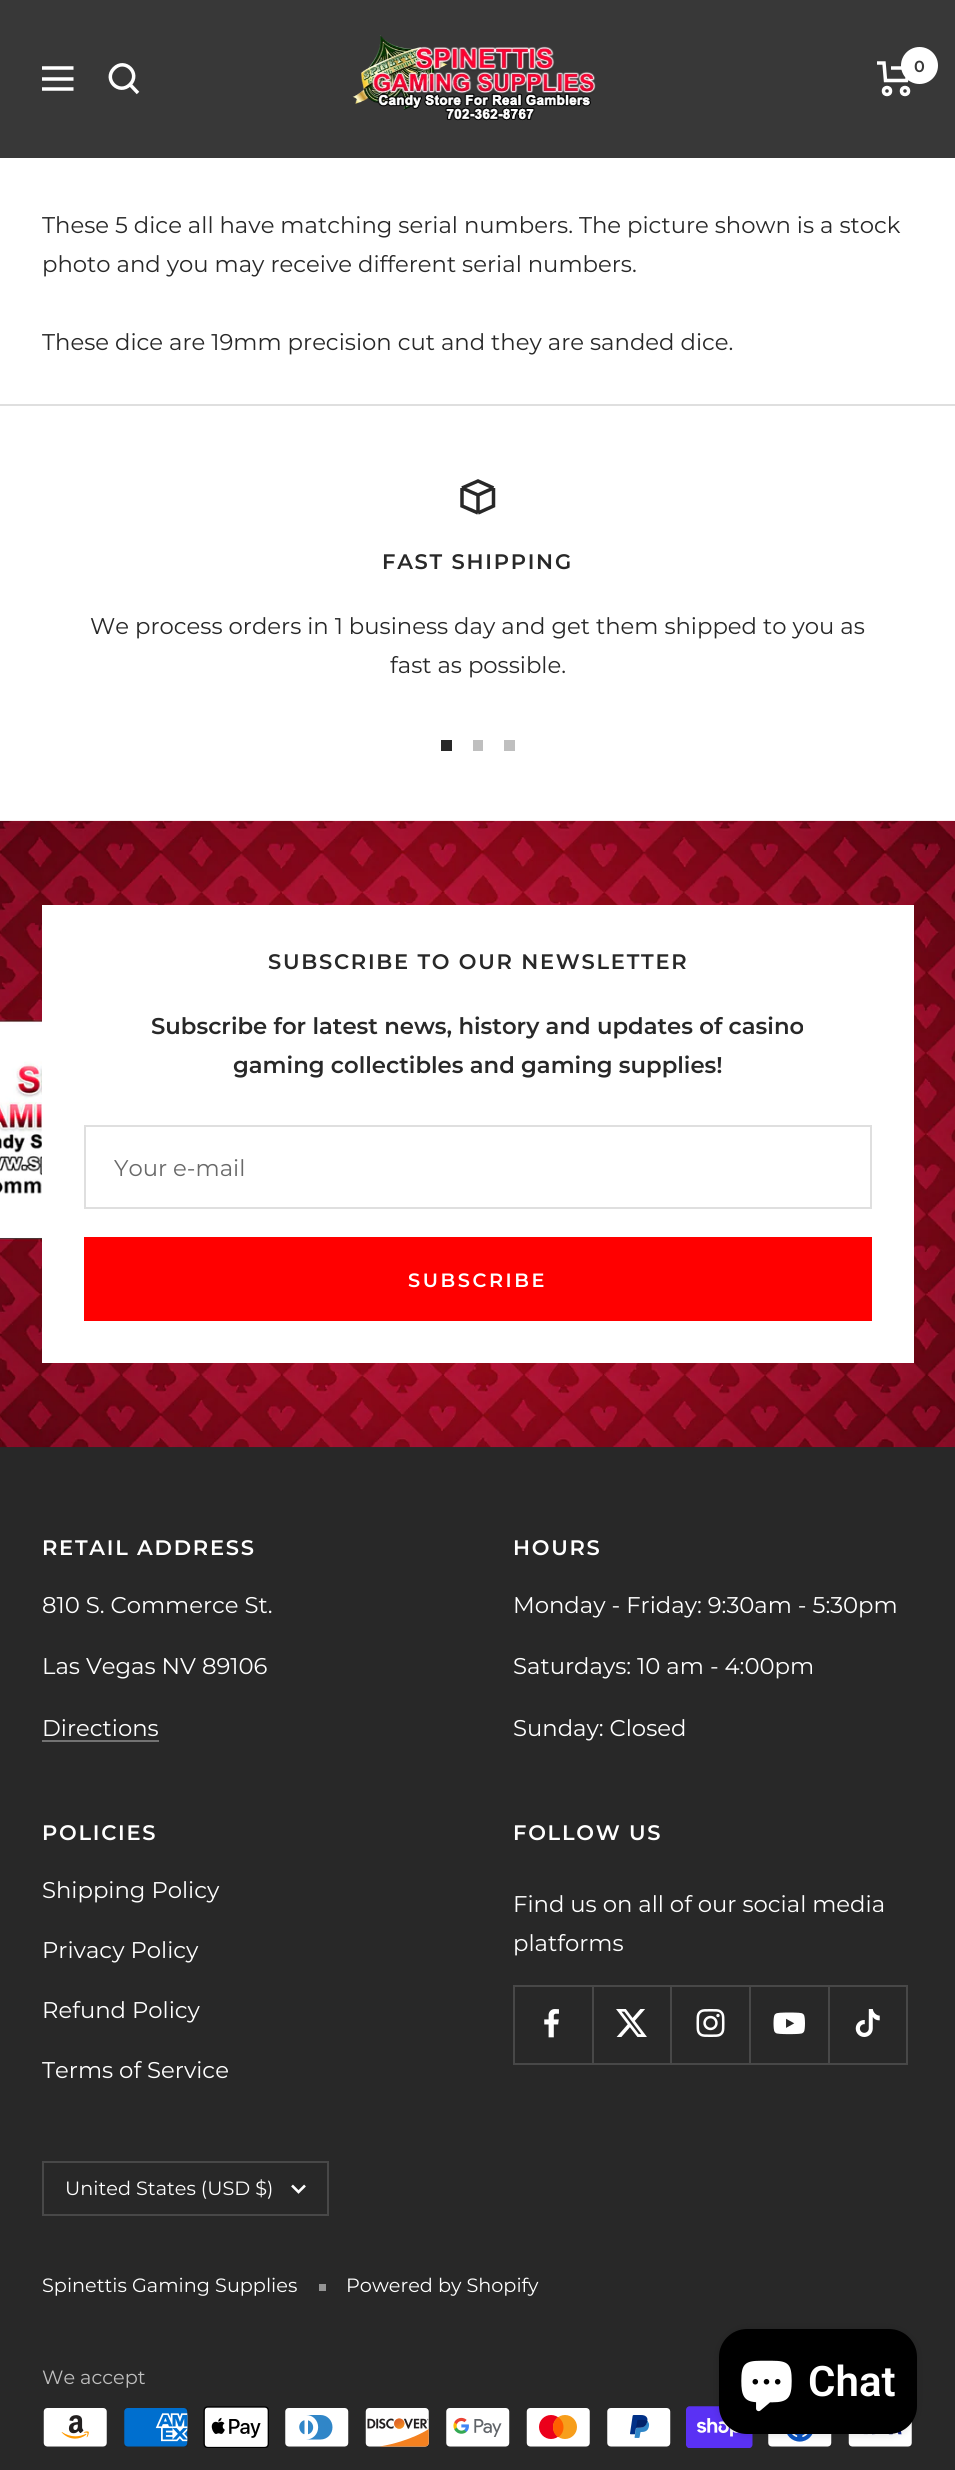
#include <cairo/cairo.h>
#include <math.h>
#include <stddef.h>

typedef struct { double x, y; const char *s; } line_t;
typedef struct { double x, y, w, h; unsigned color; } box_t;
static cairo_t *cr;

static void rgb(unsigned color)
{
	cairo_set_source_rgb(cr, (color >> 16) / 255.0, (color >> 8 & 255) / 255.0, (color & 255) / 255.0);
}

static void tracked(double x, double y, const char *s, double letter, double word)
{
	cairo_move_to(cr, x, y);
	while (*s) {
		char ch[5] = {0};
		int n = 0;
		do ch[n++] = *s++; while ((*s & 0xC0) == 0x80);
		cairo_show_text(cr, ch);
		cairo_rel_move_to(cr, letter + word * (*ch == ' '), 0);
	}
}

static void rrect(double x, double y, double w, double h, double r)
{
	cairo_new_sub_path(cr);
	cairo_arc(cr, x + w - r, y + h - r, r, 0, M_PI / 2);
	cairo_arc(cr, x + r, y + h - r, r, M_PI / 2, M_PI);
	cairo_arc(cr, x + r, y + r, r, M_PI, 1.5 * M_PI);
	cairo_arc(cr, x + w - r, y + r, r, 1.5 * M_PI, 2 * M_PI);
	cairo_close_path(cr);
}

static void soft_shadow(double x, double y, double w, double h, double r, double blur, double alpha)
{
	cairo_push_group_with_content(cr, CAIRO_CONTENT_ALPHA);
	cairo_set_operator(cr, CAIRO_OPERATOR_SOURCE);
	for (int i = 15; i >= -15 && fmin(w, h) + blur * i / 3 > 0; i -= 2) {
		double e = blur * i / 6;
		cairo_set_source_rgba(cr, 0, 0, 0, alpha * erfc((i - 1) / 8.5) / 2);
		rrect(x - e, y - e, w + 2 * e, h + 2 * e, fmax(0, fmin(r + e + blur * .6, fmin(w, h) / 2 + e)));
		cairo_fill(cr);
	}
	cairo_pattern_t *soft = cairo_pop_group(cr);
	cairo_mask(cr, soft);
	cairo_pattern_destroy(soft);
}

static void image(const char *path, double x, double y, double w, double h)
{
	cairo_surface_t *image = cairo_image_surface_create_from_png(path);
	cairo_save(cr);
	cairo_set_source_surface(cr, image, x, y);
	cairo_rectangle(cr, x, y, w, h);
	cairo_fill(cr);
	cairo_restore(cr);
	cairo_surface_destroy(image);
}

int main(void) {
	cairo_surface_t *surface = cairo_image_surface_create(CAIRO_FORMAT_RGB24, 955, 2470);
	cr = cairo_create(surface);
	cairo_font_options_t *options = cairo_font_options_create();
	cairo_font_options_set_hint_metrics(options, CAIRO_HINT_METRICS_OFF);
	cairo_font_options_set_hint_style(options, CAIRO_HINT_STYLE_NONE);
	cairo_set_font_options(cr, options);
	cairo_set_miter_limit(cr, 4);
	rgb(0xffffff);
	cairo_paint(cr);
	rgb(0x383838);
	cairo_rectangle(cr, 0, 0, 955, 158);
	cairo_fill(cr);
	cairo_new_path(cr);
	cairo_move_to(cr, 42, 68);
	cairo_line_to(cr, 73.5, 68);
	cairo_move_to(cr, 42, 89);
	cairo_line_to(cr, 73.5, 89);
	cairo_close_path(cr);
	cairo_move_to(cr, 42, 79);
	cairo_line_to(cr, 73.5, 79);
	cairo_close_path(cr);
	rgb(0xffffff);
	cairo_set_line_width(cr, 3.5);
	cairo_stroke(cr);
	cairo_new_path(cr);
	cairo_move_to(cr, 130, 84.5);
	cairo_curve_to(cr, 141, 73.5, 125, 57.5, 114, 68.5);
	cairo_curve_to(cr, 103, 79.5, 119, 95.5, 130, 84.5);
	cairo_close_path(cr);
	cairo_move_to(cr, 130, 84.5);
	cairo_line_to(cr, 138, 93);
	cairo_stroke(cr);
	image("img/1.png", 352, 35, 244, 86);
	cairo_new_path(cr);
	cairo_move_to(cr, 877, 63);
	cairo_line_to(cr, 884, 63);
	cairo_line_to(cr, 885.5, 80.5);
	cairo_line_to(cr, 906.5, 80.5);
	cairo_line_to(cr, 910, 68);
	cairo_line_to(cr, 891, 68);
	cairo_stroke(cr);
	cairo_arc(cr, 887, 91, 3.5, 0, 2 * M_PI);
	cairo_stroke(cr);
	cairo_arc(cr, 905, 91, 3.5, 0, 2 * M_PI);
	cairo_stroke(cr);
	cairo_arc(cr, 919.5, 65.5, 18.5, 0, 2 * M_PI);
	cairo_fill(cr);
	rgb(0xdfdfdf);
	cairo_rectangle(cr, 0, 404, 955, 2);
	cairo_fill(cr);
	cairo_new_path(cr);
	cairo_move_to(cr, 478, 513);
	cairo_line_to(cr, 493.5, 506);
	cairo_line_to(cr, 493.5, 488);
	cairo_move_to(cr, 478, 513);
	cairo_line_to(cr, 462, 506);
	cairo_line_to(cr, 462, 488);
	cairo_move_to(cr, 478, 513);
	cairo_line_to(cr, 478, 495);
	cairo_move_to(cr, 493.5, 488);
	cairo_line_to(cr, 478, 481);
	cairo_line_to(cr, 462, 488);
	cairo_move_to(cr, 493.5, 488);
	cairo_line_to(cr, 478, 495);
	cairo_move_to(cr, 462, 488);
	cairo_line_to(cr, 478, 495);
	rgb(0x282828);
	cairo_stroke(cr);
	{
		static const box_t items[] = {
			{441, 740, 11, 11, 0x282828},
			{473, 740, 10, 11, 0xbfbfbf},
			{504, 740, 11, 11, 0xbfbfbf},
			{0, 1447, 955, 1023, 0x282828},
		};
		for (size_t i = 0; i < sizeof items / sizeof *items; i++) {
			rgb(items[i].color);
			cairo_rectangle(cr, items[i].x, items[i].y, items[i].w, items[i].h);
			cairo_fill(cr);
		}
	}
	image("img/2.png", 0, 820, 955, 628);
	rgb(0xffffff);
	cairo_rectangle(cr, 42, 905, 872, 458);
	cairo_fill(cr);
	cairo_rectangle(cr, 85, 1126, 786, 82);
	rgb(0xdfdfdf);
	cairo_set_line_width(cr, 2);
	cairo_stroke(cr);
	rgb(0xff0000);
	cairo_rectangle(cr, 84, 1237, 788, 84);
	cairo_fill(cr);
	rgb(0x737373);
	cairo_rectangle(cr, 42, 1740, 117, 2);
	cairo_fill(cr);
	rgb(0x484848);
	cairo_new_path(cr);
	cairo_move_to(cr, 515, 2063);
	cairo_line_to(cr, 515, 2065);
	cairo_line_to(cr, 593, 2065);
	cairo_line_to(cr, 593, 1986);
	cairo_line_to(cr, 592, 1986);
	cairo_line_to(cr, 592, 2063);
	cairo_close_path(cr);
	cairo_fill(cr);
	cairo_new_path(cr);
	cairo_move_to(cr, 513, 2063);
	cairo_line_to(cr, 513, 2065);
	cairo_line_to(cr, 592, 2065);
	cairo_line_to(cr, 592, 1986);
	cairo_line_to(cr, 592, 2063);
	cairo_close_path(cr);
	cairo_fill(cr);
	cairo_rectangle(cr, 513, 1985, 79, 2);
	cairo_fill(cr);
	cairo_rectangle(cr, 513, 1985, 2, 78);
	cairo_fill(cr);
	image("img/3.png", 544, 2009, 15, 29);
	cairo_new_path(cr);
	cairo_move_to(cr, 593, 2063);
	cairo_line_to(cr, 593, 2065);
	cairo_line_to(cr, 672, 2065);
	cairo_line_to(cr, 672, 1986);
	cairo_line_to(cr, 670, 1986);
	cairo_line_to(cr, 670, 2063);
	cairo_close_path(cr);
	cairo_fill(cr);
	{
		static const box_t items[] = {
			{670, 1985, 2, 1, 0x484848},
			{592, 1985, 78, 2, 0x484848},
			{593, 1985, 1, 78, 0x484848},
		};
		for (size_t i = 0; i < sizeof items / sizeof *items; i++) {
			rgb(items[i].color);
			cairo_rectangle(cr, items[i].x, items[i].y, items[i].w, items[i].h);
			cairo_fill(cr);
		}
	}
	image("img/4.png", 616, 2009, 31, 28);
	cairo_new_path(cr);
	cairo_move_to(cr, 672, 2063);
	cairo_line_to(cr, 672, 2065);
	cairo_line_to(cr, 751, 2065);
	cairo_line_to(cr, 751, 1986);
	cairo_line_to(cr, 749, 1986);
	cairo_line_to(cr, 749, 2063);
	cairo_close_path(cr);
	cairo_fill(cr);
	cairo_rectangle(cr, 749, 1985, 2, 1);
	cairo_fill(cr);
	cairo_rectangle(cr, 670, 1985, 79, 2);
	cairo_fill(cr);
	image("img/5.png", 696, 2009, 29, 28);
	cairo_new_path(cr);
	cairo_move_to(cr, 751, 2063);
	cairo_line_to(cr, 751, 2065);
	cairo_line_to(cr, 830, 2065);
	cairo_line_to(cr, 830, 1986);
	cairo_line_to(cr, 828, 1986);
	cairo_line_to(cr, 828, 2063);
	cairo_close_path(cr);
	cairo_fill(cr);
	cairo_rectangle(cr, 828, 1985, 2, 1);
	cairo_fill(cr);
	cairo_rectangle(cr, 749, 1985, 79, 2);
	cairo_fill(cr);
	image("img/6.png", 773, 2012, 32, 23);
	cairo_new_path(cr);
	cairo_move_to(cr, 830, 2063);
	cairo_line_to(cr, 830, 2065);
	cairo_line_to(cr, 908, 2065);
	cairo_line_to(cr, 908, 1986);
	cairo_line_to(cr, 906, 1986);
	cairo_line_to(cr, 906, 2063);
	cairo_close_path(cr);
	cairo_fill(cr);
	cairo_rectangle(cr, 906, 1985, 2, 1);
	cairo_fill(cr);
	cairo_rectangle(cr, 828, 1985, 79, 2);
	cairo_fill(cr);
	image("img/7.png", 855, 2009, 25, 28);
	cairo_rectangle(cr, 43, 2162, 285, 53);
	cairo_stroke(cr);
	cairo_new_path(cr);
	cairo_move_to(cr, 292, 2185.5);
	cairo_line_to(cr, 298.5, 2192);
	cairo_line_to(cr, 305, 2185.5);
	rgb(0xffffff);
	cairo_set_line_width(cr, 2.6);
	cairo_stroke(cr);
	rgb(0x949494);
	cairo_rectangle(cr, 319, 2284, 7, 7);
	cairo_fill(cr);
	image("img/8.png", 43, 2408, 64, 39);
	image("img/9.png", 124, 2408, 64, 39);
	image("img/10.png", 203, 2406, 66, 42);
	image("img/11.png", 285, 2408, 64, 39);
	image("img/12.png", 365, 2408, 64, 39);
	image("img/13.png", 446, 2408, 64, 39);
	image("img/14.png", 526, 2408, 64, 39);
	image("img/15.png", 607, 2408, 64, 39);
	image("img/16.png", 686, 2406, 67, 42);
	image("img/17.png", 768, 2434, 64, 13);
	image("img/18.png", 848, 2422, 64, 25);
	rgb(0x000000);
	soft_shadow(719, 2329, 198, 105, 28, 4.5, 0.15);
	rgb(0x000000);
	rrect(719, 2329, 198, 105, 28);
	cairo_fill(cr);
	image("img/19.png", 741, 2360, 51, 52);
	cairo_select_font_face(cr, "Montserrat SemiBold", CAIRO_FONT_SLANT_NORMAL, CAIRO_FONT_WEIGHT_NORMAL);
	cairo_set_font_size(cr, 16);
	rgb(0x383838);
	cairo_move_to(cr, 914, 72);
	cairo_show_text(cr, "0");
	cairo_select_font_face(cr, "Montserrat", CAIRO_FONT_SLANT_NORMAL, CAIRO_FONT_WEIGHT_NORMAL);
	cairo_set_font_size(cr, 22.75);
	rgb(0x282828);
	{
		static const line_t items[] = {
			{42, 233, "These 5 dice all have matching serial numbers. The picture shown is a stock"},
			{42, 272, "photo and you may receive different serial numbers."},
			{42, 350, "These dice are 19mm precision cut and they are sanded dice."},
		};
		for (size_t i = 0; i < sizeof items / sizeof *items; i++) {
			cairo_move_to(cr, items[i].x, items[i].y);
			cairo_show_text(cr, items[i].s);
		}
	}
	cairo_select_font_face(cr, "Montserrat SemiBold", CAIRO_FONT_SLANT_NORMAL, CAIRO_FONT_WEIGHT_NORMAL);
	cairo_set_font_size(cr, 21);
	tracked(382, 569, "FAST SHIPPING", 1.75, 0);
	cairo_select_font_face(cr, "Montserrat", CAIRO_FONT_SLANT_NORMAL, CAIRO_FONT_WEIGHT_NORMAL);
	cairo_set_font_size(cr, 22.75);
	cairo_move_to(cr, 90, 634);
	cairo_show_text(cr, "We process orders in 1 business day and get them shipped to you as");
	cairo_move_to(cr, 390, 673);
	cairo_show_text(cr, "fast as possible.");
	cairo_select_font_face(cr, "Montserrat SemiBold", CAIRO_FONT_SLANT_NORMAL, CAIRO_FONT_WEIGHT_NORMAL);
	cairo_set_font_size(cr, 21);
	tracked(268, 969, "SUBSCRIBE TO OUR NEWSLETTER", 1.75, 0);
	cairo_set_font_size(cr, 22.75);
	cairo_move_to(cr, 151, 1034);
	cairo_show_text(cr, "Subscribe for latest news, history and updates of casino");
	cairo_move_to(cr, 233, 1073);
	cairo_show_text(cr, "gaming collectibles and gaming supplies!");
	cairo_select_font_face(cr, "Montserrat", CAIRO_FONT_SLANT_NORMAL, CAIRO_FONT_WEIGHT_NORMAL);
	rgb(0x696969);
	cairo_move_to(cr, 114, 1176);
	cairo_show_text(cr, "Your e-mail");
	cairo_select_font_face(cr, "Montserrat SemiBold", CAIRO_FONT_SLANT_NORMAL, CAIRO_FONT_WEIGHT_NORMAL);
	cairo_set_font_size(cr, 19.25);
	rgb(0xffffff);
	tracked(408, 1287, "SUBSCRIBE", 2.6, 0);
	cairo_set_font_size(cr, 21);
	tracked(42, 1555, "RETAIL ADDRESS", 1.75, 0);
	cairo_select_font_face(cr, "Montserrat", CAIRO_FONT_SLANT_NORMAL, CAIRO_FONT_WEIGHT_NORMAL);
	cairo_set_font_size(cr, 22.75);
	{
		static const line_t items[] = {
			{42, 1613, "810 S. Commerce St."},
			{42, 1674, "Las Vegas NV 89106"},
			{42, 1736, "Directions"},
		};
		for (size_t i = 0; i < sizeof items / sizeof *items; i++) {
			cairo_move_to(cr, items[i].x, items[i].y);
			cairo_show_text(cr, items[i].s);
		}
	}
	cairo_select_font_face(cr, "Montserrat SemiBold", CAIRO_FONT_SLANT_NORMAL, CAIRO_FONT_WEIGHT_NORMAL);
	cairo_set_font_size(cr, 21);
	tracked(513, 1555, "HOURS", 1.75, 0);
	cairo_select_font_face(cr, "Montserrat", CAIRO_FONT_SLANT_NORMAL, CAIRO_FONT_WEIGHT_NORMAL);
	cairo_set_font_size(cr, 22.75);
	{
		static const line_t items[] = {
			{513, 1613, "Monday - Friday: 9:30am - 5:30pm"},
			{513, 1674, "Saturdays: 10 am - 4:00pm"},
			{513, 1736, "Sunday: Closed"},
		};
		for (size_t i = 0; i < sizeof items / sizeof *items; i++) {
			cairo_move_to(cr, items[i].x, items[i].y);
			cairo_show_text(cr, items[i].s);
		}
	}
	cairo_select_font_face(cr, "Montserrat SemiBold", CAIRO_FONT_SLANT_NORMAL, CAIRO_FONT_WEIGHT_NORMAL);
	cairo_set_font_size(cr, 21);
	tracked(42, 1840, "POLICIES", 1.75, 0);
	cairo_select_font_face(cr, "Montserrat", CAIRO_FONT_SLANT_NORMAL, CAIRO_FONT_WEIGHT_NORMAL);
	cairo_set_font_size(cr, 22.75);
	{
		static const line_t items[] = {
			{42, 1898, "Shipping Policy"},
			{42, 1958, "Privacy Policy"},
			{42, 2018, "Refund Policy"},
			{42, 2078, "Terms of Service"},
		};
		for (size_t i = 0; i < sizeof items / sizeof *items; i++) {
			cairo_move_to(cr, items[i].x, items[i].y);
			cairo_show_text(cr, items[i].s);
		}
	}
	cairo_select_font_face(cr, "Montserrat SemiBold", CAIRO_FONT_SLANT_NORMAL, CAIRO_FONT_WEIGHT_NORMAL);
	cairo_set_font_size(cr, 21);
	tracked(513, 1840, "FOLLOW US", 1.75, 0);
	cairo_select_font_face(cr, "Montserrat", CAIRO_FONT_SLANT_NORMAL, CAIRO_FONT_WEIGHT_NORMAL);
	cairo_set_font_size(cr, 22.75);
	cairo_move_to(cr, 513, 1912);
	cairo_show_text(cr, "Find us on all of our social media");
	cairo_move_to(cr, 513, 1951);
	cairo_show_text(cr, "platforms");
	cairo_set_font_size(cr, 19.25);
	{
		static const line_t items[] = {
			{65, 2195, "United States (USD $)"},
			{42, 2292, "Spinettis Gaming Supplies"},
			{346, 2292, "Powered by Shopify"},
		};
		for (size_t i = 0; i < sizeof items / sizeof *items; i++) {
			cairo_move_to(cr, items[i].x, items[i].y);
			cairo_show_text(cr, items[i].s);
		}
	}
	rgb(0xbfbfbf);
	cairo_move_to(cr, 42, 2384);
	cairo_show_text(cr, "We accept");
	cairo_select_font_face(cr, "Roboto SemiBold", CAIRO_FONT_SLANT_NORMAL, CAIRO_FONT_WEIGHT_NORMAL);
	cairo_set_font_size(cr, 42);
	rgb(0xffffff);
	cairo_move_to(cr, 808, 2396);
	cairo_show_text(cr, "Chat");
	cairo_surface_write_to_png(surface, "page.png");
	cairo_font_options_destroy(options);
	cairo_destroy(cr);
	cairo_surface_destroy(surface);
	return 0;
}
